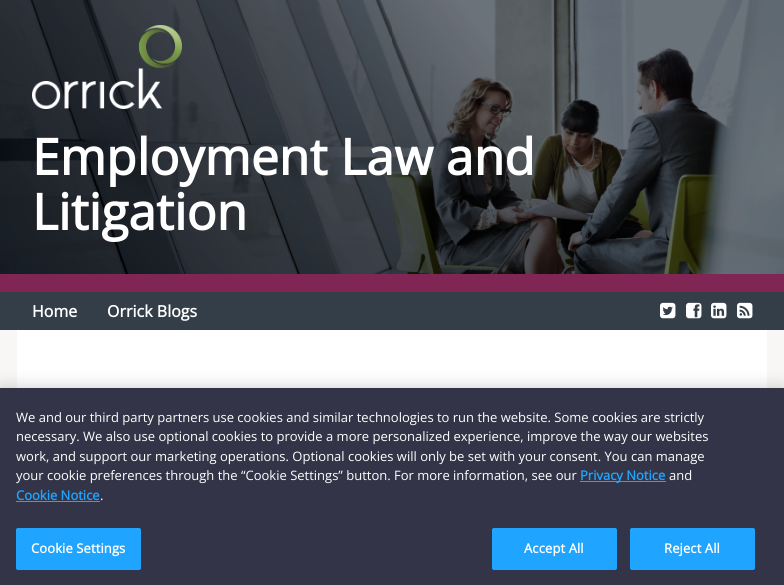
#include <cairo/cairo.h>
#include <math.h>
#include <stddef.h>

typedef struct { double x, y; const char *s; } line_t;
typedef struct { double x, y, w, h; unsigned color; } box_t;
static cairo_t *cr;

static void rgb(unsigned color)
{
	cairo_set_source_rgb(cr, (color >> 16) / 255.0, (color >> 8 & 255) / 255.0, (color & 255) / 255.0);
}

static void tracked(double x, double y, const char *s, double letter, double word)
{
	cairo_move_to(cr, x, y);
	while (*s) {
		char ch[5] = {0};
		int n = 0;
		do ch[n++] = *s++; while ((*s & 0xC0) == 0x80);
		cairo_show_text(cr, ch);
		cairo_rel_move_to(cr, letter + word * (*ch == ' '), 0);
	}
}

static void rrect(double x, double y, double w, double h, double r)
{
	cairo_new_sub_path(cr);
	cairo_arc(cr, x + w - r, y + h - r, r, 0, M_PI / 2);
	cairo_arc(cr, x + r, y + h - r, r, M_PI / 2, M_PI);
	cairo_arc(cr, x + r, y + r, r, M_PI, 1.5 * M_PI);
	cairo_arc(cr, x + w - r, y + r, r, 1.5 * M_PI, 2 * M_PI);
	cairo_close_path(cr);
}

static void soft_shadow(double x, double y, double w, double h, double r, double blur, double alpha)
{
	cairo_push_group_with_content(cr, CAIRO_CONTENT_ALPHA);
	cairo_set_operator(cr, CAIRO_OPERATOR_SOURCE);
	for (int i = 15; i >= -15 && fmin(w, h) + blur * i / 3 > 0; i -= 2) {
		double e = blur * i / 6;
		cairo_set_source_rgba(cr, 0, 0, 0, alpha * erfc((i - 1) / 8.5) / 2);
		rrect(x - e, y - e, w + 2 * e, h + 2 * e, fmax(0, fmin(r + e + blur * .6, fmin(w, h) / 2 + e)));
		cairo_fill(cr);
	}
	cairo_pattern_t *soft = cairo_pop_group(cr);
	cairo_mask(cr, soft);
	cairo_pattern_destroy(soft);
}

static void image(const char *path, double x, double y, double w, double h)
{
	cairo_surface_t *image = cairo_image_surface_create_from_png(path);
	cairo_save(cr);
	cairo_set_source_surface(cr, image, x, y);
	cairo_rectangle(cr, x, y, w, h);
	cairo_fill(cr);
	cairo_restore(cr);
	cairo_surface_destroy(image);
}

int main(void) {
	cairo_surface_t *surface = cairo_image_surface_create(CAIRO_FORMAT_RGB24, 784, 585);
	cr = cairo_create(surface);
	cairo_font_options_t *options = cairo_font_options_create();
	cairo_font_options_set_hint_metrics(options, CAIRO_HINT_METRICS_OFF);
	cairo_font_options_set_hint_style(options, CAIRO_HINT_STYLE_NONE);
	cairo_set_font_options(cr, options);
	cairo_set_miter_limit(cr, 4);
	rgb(0xf8f7f5);
	cairo_paint(cr);
	image("img/1.png", 0, 0, 784, 274);
	rgb(0x802655);
	cairo_rectangle(cr, 0, 274, 784, 18);
	cairo_fill(cr);
	image("img/2.png", 32, 25, 150, 84);
	rgb(0x333e48);
	cairo_rectangle(cr, 0, 292, 784, 38);
	cairo_fill(cr);
	image("img/3.png", 660, 302, 16, 17);
	image("img/4.png", 686, 302, 16, 17);
	image("img/5.png", 711, 302, 16, 17);
	image("img/6.png", 737, 302, 16, 17);
	rgb(0xffffff);
	cairo_rectangle(cr, 17, 330, 750, 58);
	cairo_fill(cr);
	rgb(0x000000);
	soft_shadow(0, 388, 784, 197, 0, 9, 0.2);
	{
		static const box_t items[] = {
			{0, 388, 784, 197, 0x333447},
			{580, 481, 86, 1, 0x1fa5ff},
			{16, 501, 84, 1, 0x1fa5ff},
		};
		for (size_t i = 0; i < sizeof items / sizeof *items; i++) {
			rgb(items[i].color);
			cairo_rectangle(cr, items[i].x, items[i].y, items[i].w, items[i].h);
			cairo_fill(cr);
		}
	}
	rrect(16.5, 528.5, 124, 41, 1.5);
	cairo_fill_preserve(cr);
	cairo_set_line_width(cr, 1);
	cairo_stroke(cr);
	rrect(492.5, 528.5, 124, 41, 1.5);
	cairo_fill_preserve(cr);
	cairo_stroke(cr);
	rrect(630.5, 528.5, 124, 41, 1.5);
	cairo_fill_preserve(cr);
	cairo_stroke(cr);
	cairo_select_font_face(cr, "Open Sans", CAIRO_FONT_SLANT_NORMAL, CAIRO_FONT_WEIGHT_BOLD);
	cairo_set_font_size(cr, 50);
	rgb(0xffffff);
	cairo_move_to(cr, 32, 175);
	cairo_show_text(cr, "Employment Law and");
	cairo_move_to(cr, 32, 230);
	cairo_show_text(cr, "Litigation");
	cairo_set_font_size(cr, 16);
	cairo_move_to(cr, 32, 317);
	cairo_show_text(cr, "Home");
	cairo_move_to(cr, 107, 317);
	cairo_show_text(cr, "Orrick Blogs");
	cairo_select_font_face(cr, "Open Sans", CAIRO_FONT_SLANT_NORMAL, CAIRO_FONT_WEIGHT_NORMAL);
	cairo_set_font_size(cr, 13);
	{
		static const line_t items[] = {
			{16, 422, "We and our third party partners use cookies and similar technologies to run the website. Some cookies are strictly"},
			{16, 441, "necessary. We also use optional cookies to provide a more personalized experience, improve the way our websites"},
			{16, 461, "work, and support our marketing operations. Optional cookies will only be set with your consent. You can manage"},
			{16, 480, "your cookie preferences through the “Cookie Settings” button. For more information, see our"},
		};
		for (size_t i = 0; i < sizeof items / sizeof *items; i++) {
			cairo_move_to(cr, items[i].x, items[i].y);
			cairo_show_text(cr, items[i].s);
		}
	}
	cairo_select_font_face(cr, "Open Sans", CAIRO_FONT_SLANT_NORMAL, CAIRO_FONT_WEIGHT_BOLD);
	rgb(0x1fa5ff);
	cairo_move_to(cr, 580, 480);
	cairo_show_text(cr, "Privacy Notice");
	cairo_select_font_face(cr, "Open Sans", CAIRO_FONT_SLANT_NORMAL, CAIRO_FONT_WEIGHT_NORMAL);
	rgb(0xffffff);
	cairo_move_to(cr, 669, 480);
	cairo_show_text(cr, "and");
	cairo_select_font_face(cr, "Open Sans", CAIRO_FONT_SLANT_NORMAL, CAIRO_FONT_WEIGHT_BOLD);
	rgb(0x1fa5ff);
	cairo_move_to(cr, 16, 500);
	cairo_show_text(cr, "Cookie Notice");
	cairo_select_font_face(cr, "Open Sans", CAIRO_FONT_SLANT_NORMAL, CAIRO_FONT_WEIGHT_NORMAL);
	rgb(0xffffff);
	cairo_move_to(cr, 100, 500);
	cairo_show_text(cr, ".");
	cairo_select_font_face(cr, "Open Sans", CAIRO_FONT_SLANT_NORMAL, CAIRO_FONT_WEIGHT_BOLD);
	{
		static const line_t items[] = {
			{31, 553, "Cookie Settings"},
			{524, 553, "Accept All"},
			{664, 553, "Reject All"},
		};
		for (size_t i = 0; i < sizeof items / sizeof *items; i++) {
			tracked(items[i].x, items[i].y, items[i].s, 0.1, 0);
		}
	}
	cairo_surface_write_to_png(surface, "page.png");
	cairo_font_options_destroy(options);
	cairo_destroy(cr);
	cairo_surface_destroy(surface);
	return 0;
}
